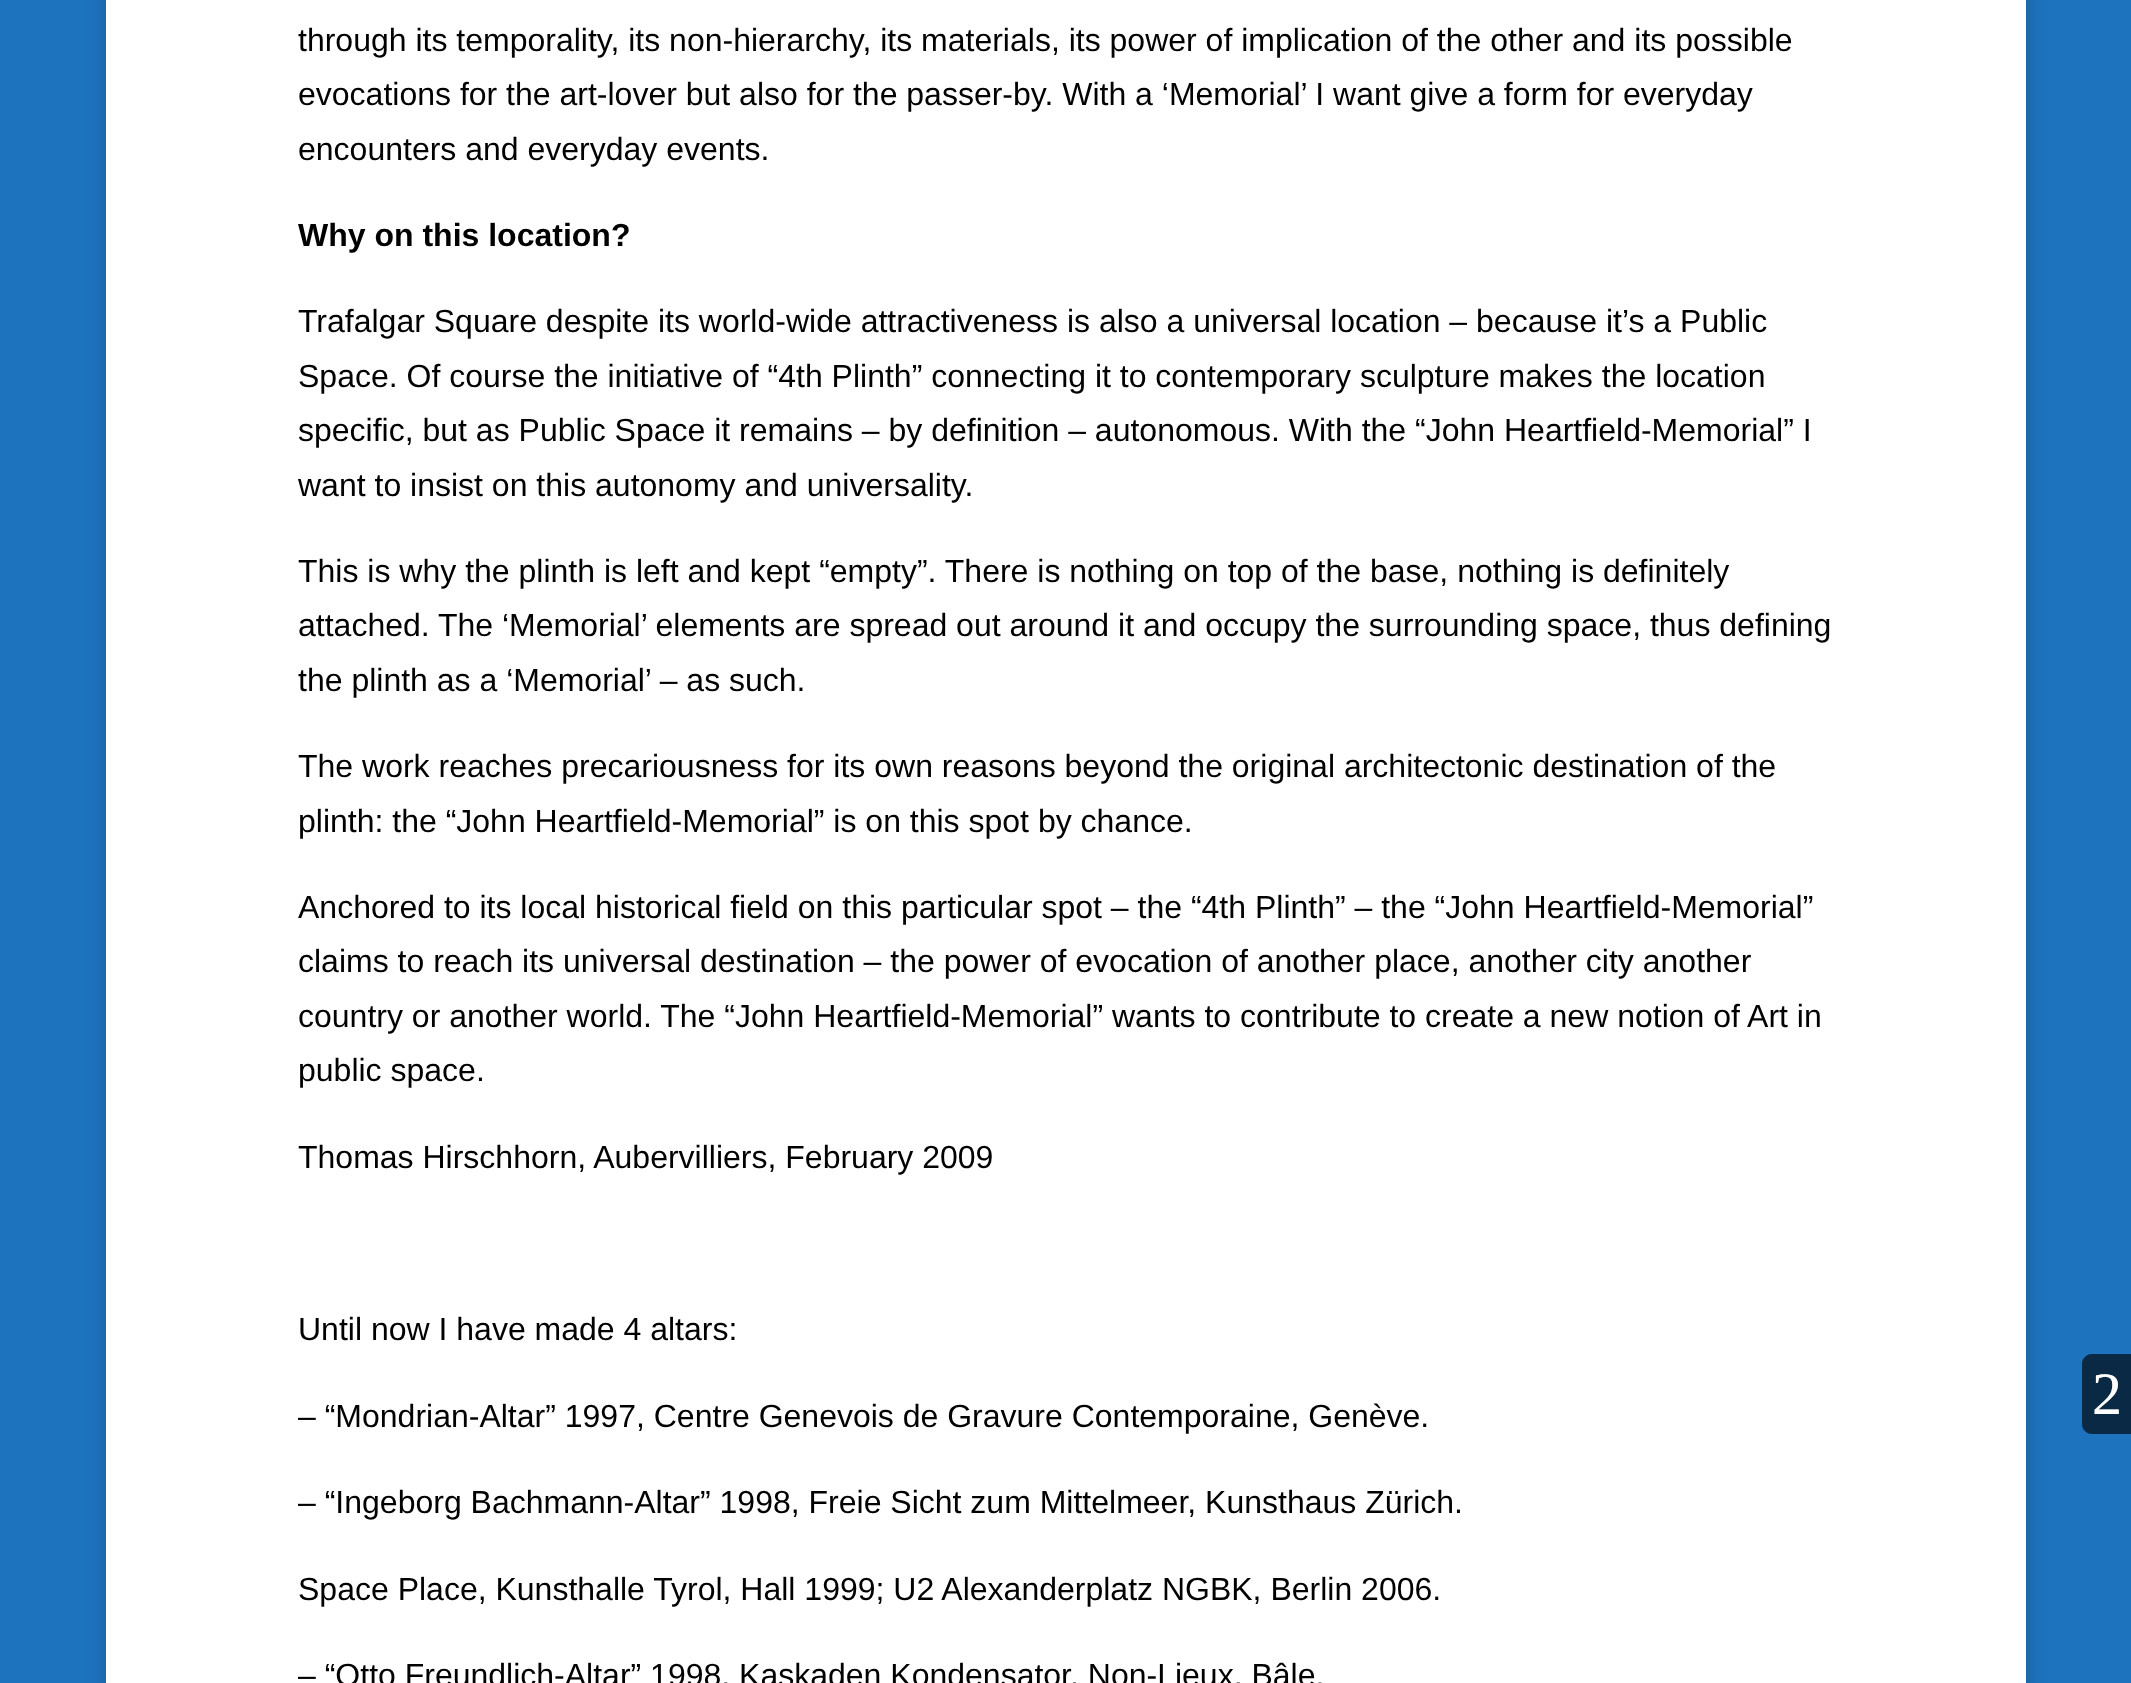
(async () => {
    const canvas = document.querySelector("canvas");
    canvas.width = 2131;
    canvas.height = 1683;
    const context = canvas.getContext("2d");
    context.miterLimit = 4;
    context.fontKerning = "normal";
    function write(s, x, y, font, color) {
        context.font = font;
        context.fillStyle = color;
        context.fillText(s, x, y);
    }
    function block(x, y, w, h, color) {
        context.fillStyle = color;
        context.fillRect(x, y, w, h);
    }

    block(0, 0, 2131, 1683, "rgb(30, 115, 190)");
    context.fillStyle = "rgba(0, 0, 0, 0.2)";
    context.filter = "blur(10px)";
    context.beginPath();
    context.rect(106, -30, 1920, 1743);
    context.fill();
    context.filter = "none";
    block(106, 0, 1920, 1683, "rgb(255, 255, 255)");
    write("through its temporality, its non-hierarchy, its materials, its power of implication of the other and its possible", 298, 51, "32px Liberation Sans", "rgb(0, 0, 0)");
    write("evocations for the art-lover but also for the passer-by. With a ‘Memorial’ I want give a form for everyday", 298, 105, "32px Liberation Sans", "rgb(0, 0, 0)");
    write("encounters and everyday events.", 298, 160, "32px Liberation Sans", "rgb(0, 0, 0)");
    write("Why on this location?", 298, 246, "bold 32px Liberation Sans", "rgb(0, 0, 0)");
    write("Trafalgar Square despite its world-wide attractiveness is also a universal location – because it’s a Public", 298, 332, "32px Liberation Sans", "rgb(0, 0, 0)");
    write("Space. Of course the initiative of “4th Plinth” connecting it to contemporary sculpture makes the location", 298, 387, "32px Liberation Sans", "rgb(0, 0, 0)");
    write("specific, but as Public Space it remains – by definition – autonomous. With the “John Heartfield-Memorial” I", 298, 441, "32px Liberation Sans", "rgb(0, 0, 0)");
    write("want to insist on this autonomy and universality.", 298, 496, "32px Liberation Sans", "rgb(0, 0, 0)");
    write("This is why the plinth is left and kept “empty”. There is nothing on top of the base, nothing is definitely", 298, 582, "32px Liberation Sans", "rgb(0, 0, 0)");
    write("attached. The ‘Memorial’ elements are spread out around it and occupy the surrounding space, thus defining", 298, 636, "32px Liberation Sans", "rgb(0, 0, 0)");
    write("the plinth as a ‘Memorial’ – as such.", 298, 691, "32px Liberation Sans", "rgb(0, 0, 0)");
    write("The work reaches precariousness for its own reasons beyond the original architectonic destination of the", 298, 777, "32px Liberation Sans", "rgb(0, 0, 0)");
    write("plinth: the “John Heartfield-Memorial” is on this spot by chance.", 298, 832, "32px Liberation Sans", "rgb(0, 0, 0)");
    write("Anchored to its local historical field on this particular spot – the “4th Plinth” – the “John Heartfield-Memorial”", 298, 918, "32px Liberation Sans", "rgb(0, 0, 0)");
    write("claims to reach its universal destination – the power of evocation of another place, another city another", 298, 972, "32px Liberation Sans", "rgb(0, 0, 0)");
    write("country or another world. The “John Heartfield-Memorial” wants to contribute to create a new notion of Art in", 298, 1027, "32px Liberation Sans", "rgb(0, 0, 0)");
    write("public space.", 298, 1081, "32px Liberation Sans", "rgb(0, 0, 0)");
    write("Thomas Hirschhorn, Aubervilliers, February 2009", 298, 1168, "32px Liberation Sans", "rgb(0, 0, 0)");
    write("Until now I have made 4 altars:", 298, 1340, "32px Liberation Sans", "rgb(0, 0, 0)");
    write("– “Mondrian-Altar” 1997, Centre Genevois de Gravure Contemporaine, Genève.", 298, 1427, "32px Liberation Sans", "rgb(0, 0, 0)");
    write("– “Ingeborg Bachmann-Altar” 1998, Freie Sicht zum Mittelmeer, Kunsthaus Zürich.", 298, 1513, "32px Liberation Sans", "rgb(0, 0, 0)");
    write("Space Place, Kunsthalle Tyrol, Hall 1999; U2 Alexanderplatz NGBK, Berlin 2006.", 298, 1600, "32px Liberation Sans", "rgb(0, 0, 0)");
    write("– “Otto Freundlich-Altar” 1998, Kaskaden Kondensator, Non-Lieux, Bâle.", 298, 1686, "32px Liberation Sans", "rgb(0, 0, 0)");
    context.fillStyle = "rgb(18, 69, 114)";
    context.beginPath();
    context.moveTo(2092, 1354);
    context.lineTo(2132, 1354);
    context.lineTo(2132, 1434);
    context.lineTo(2092, 1434);
    context.bezierCurveTo(2086.5, 1434, 2082, 1429.5, 2082, 1424);
    context.lineTo(2082, 1364);
    context.bezierCurveTo(2082, 1358.5, 2086.5, 1354, 2092, 1354);
    context.closePath();
    context.fill();
    write("2", 2092, 1414, "60px Liberation Serif", "rgb(255, 255, 255)");
    context.fillStyle = "rgba(0, 0, 0, 0.4)";
    context.beginPath();
    context.moveTo(2092, 1354);
    context.lineTo(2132, 1354);
    context.lineTo(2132, 1434);
    context.lineTo(2092, 1434);
    context.bezierCurveTo(2086.5, 1434, 2082, 1429.5, 2082, 1424);
    context.lineTo(2082, 1364);
    context.bezierCurveTo(2082, 1358.5, 2086.5, 1354, 2092, 1354);
    context.closePath();
    context.fill();
    write("2", 2092, 1414, "60px Liberation Serif", "rgb(255, 255, 255)");
})();
